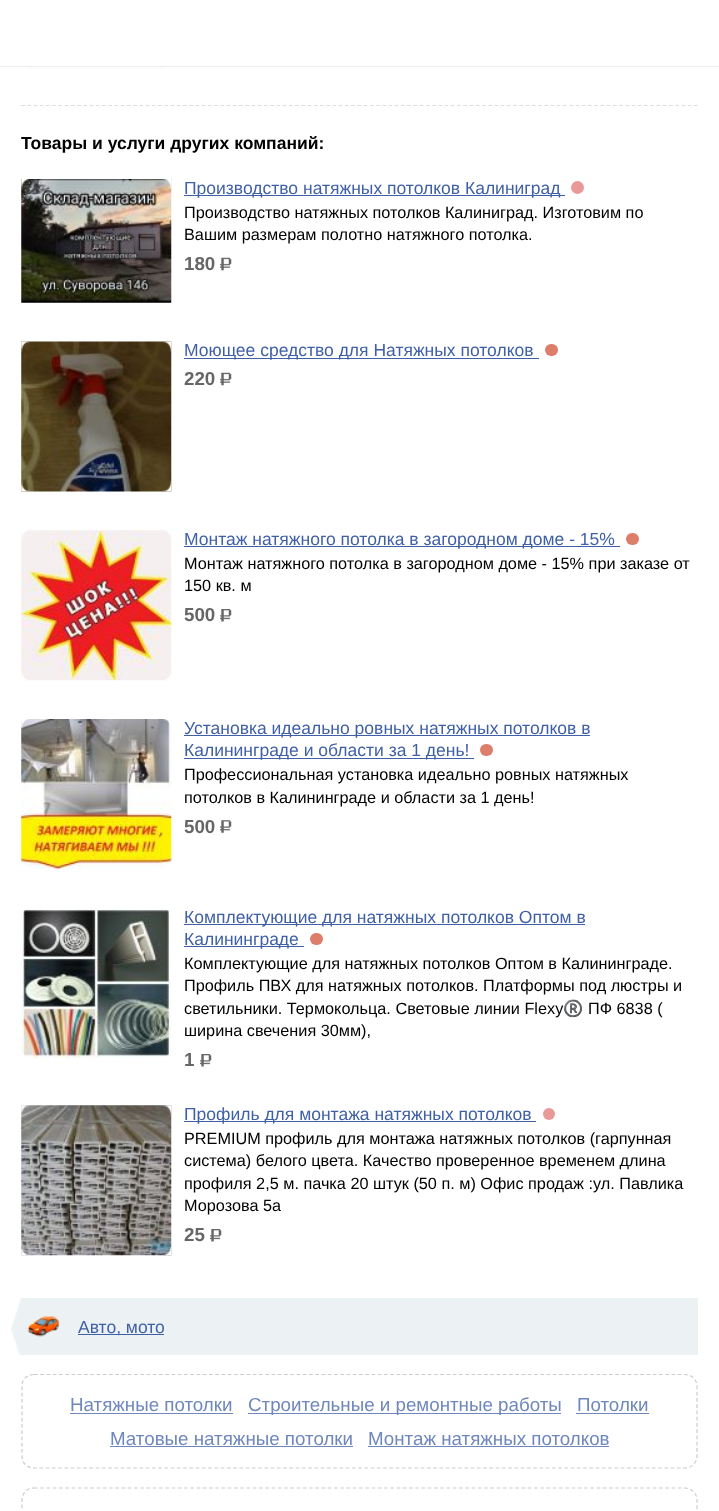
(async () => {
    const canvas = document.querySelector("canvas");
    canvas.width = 719;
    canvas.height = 1511;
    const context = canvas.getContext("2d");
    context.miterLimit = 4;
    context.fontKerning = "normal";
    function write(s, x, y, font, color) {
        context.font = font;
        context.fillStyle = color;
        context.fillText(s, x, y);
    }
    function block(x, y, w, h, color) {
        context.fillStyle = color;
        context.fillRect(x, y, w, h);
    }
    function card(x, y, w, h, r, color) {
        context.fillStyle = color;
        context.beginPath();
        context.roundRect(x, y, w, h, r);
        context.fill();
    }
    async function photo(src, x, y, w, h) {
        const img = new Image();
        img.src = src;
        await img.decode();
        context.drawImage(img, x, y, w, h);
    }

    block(0, 0, 719, 1511, "rgb(255, 255, 255)");
    block(0, 66, 719, 1, "rgb(238, 238, 238)");
    await photo("media/1.png", 21, 68, 150, 1);
    context.beginPath();
    context.moveTo(21, 105.5);
    context.lineTo(697.5, 105.5);
    context.strokeStyle = "rgb(221, 221, 221)";
    context.lineWidth = 1.2;
    context.setLineDash([3.75, 2.48]);
    context.stroke();
    write("Товары и услуги других компаний:", 21, 149, "bold 17.5px Liberation Sans", "rgb(0, 0, 0)");
    await photo("media/2.png", 21, 179, 151, 124);
    await photo("media/3.png", 21, 179, 151, 10);
    block(184, 195, 381, 1, "rgb(63, 95, 166)");
    write("Производство натяжных потолков Калиниград", 184, 194, "17.5px Liberation Sans", "rgb(63, 95, 166)");
    context.fillStyle = "rgb(234, 153, 153)";
    context.beginPath();
    context.arc(577.5, 187.5, 6.5, 0, Math.PI * 2);
    context.fill();
    write("Производство натяжных потолков Калиниград. Изготовим по", 184, 218, "16.25px Liberation Sans", "rgb(0, 0, 0)");
    write("Вашим размерам полотно натяжного потолка.", 184, 240, "16.25px Liberation Sans", "rgb(0, 0, 0)");
    write("180", 184, 270, "bold 18.75px Liberation Sans", "rgb(102, 102, 102)");
    await photo("media/4.png", 220, 257, 12, 14);
    await photo("media/5.png", 21, 341, 151, 151);
    await photo("media/6.png", 21, 341, 151, 151);
    block(184, 358, 355, 1, "rgb(63, 95, 166)");
    write("Моющее средство для Натяжных потолков", 184, 356, "17.5px Liberation Sans", "rgb(63, 95, 166)");
    card(545, 344, 13, 12, 6, "rgb(221, 126, 107)");
    write("220", 184, 385, "bold 18.75px Liberation Sans", "rgb(102, 102, 102)");
    await photo("media/4.png", 220, 372, 12, 14);
    await photo("media/7.png", 21, 530, 151, 151);
    await photo("media/8.png", 21, 530, 150, 150);
    block(184, 546, 436, 1, "rgb(63, 95, 166)");
    write("Монтаж натяжного потолка в загородном доме - 15%", 184, 545, "17.5px Liberation Sans", "rgb(63, 95, 166)");
    card(626, 533, 13, 12, 6, "rgb(221, 126, 107)");
    write("Монтаж натяжного потолка в загородном доме - 15% при заказе от", 184, 569, "16.25px Liberation Sans", "rgb(0, 0, 0)");
    write("150 кв. м", 184, 591, "16.25px Liberation Sans", "rgb(0, 0, 0)");
    write("500", 184, 621, "bold 18.75px Liberation Sans", "rgb(102, 102, 102)");
    await photo("media/9.png", 220, 609, 12, 13);
    await photo("media/10.png", 21, 719, 151, 150);
    await photo("media/11.png", 21, 719, 150, 150);
    block(184, 735, 406, 1, "rgb(63, 95, 166)");
    write("Установка идеально ровных натяжных потолков в", 184, 734, "17.5px Liberation Sans", "rgb(63, 95, 166)");
    block(184, 758, 290, 1, "rgb(63, 95, 166)");
    write("Калининграде и области за 1 день!", 184, 756, "17.5px Liberation Sans", "rgb(63, 95, 166)");
    card(480, 744, 13, 12, 6, "rgb(221, 126, 107)");
    write("Профессиональная установка идеально ровных натяжных", 184, 780, "16.25px Liberation Sans", "rgb(0, 0, 0)");
    write("потолков в Калининграде и области за 1 день!", 184, 803, "16.25px Liberation Sans", "rgb(0, 0, 0)");
    write("500", 184, 833, "bold 18.75px Liberation Sans", "rgb(102, 102, 102)");
    await photo("media/12.png", 220, 820, 12, 13);
    await photo("media/13.png", 21, 908, 151, 150);
    await photo("media/14.png", 21, 908, 150, 150);
    block(184, 924, 401, 1, "rgb(63, 95, 166)");
    write("Комплектующие для натяжных потолков Оптом в", 184, 923, "17.5px Liberation Sans", "rgb(63, 95, 166)");
    block(184, 946, 120, 1, "rgb(63, 95, 166)");
    write("Калининграде", 184, 945, "17.5px Liberation Sans", "rgb(63, 95, 166)");
    card(310, 933, 13, 12, 6, "rgb(221, 126, 107)");
    write("Комплектующие для натяжных потолков Оптом в Калининграде.", 184, 969, "16.25px Liberation Sans", "rgb(0, 0, 0)");
    write("Профиль ПВХ для натяжных потолков. Платформы под люстры и", 184, 991, "16.25px Liberation Sans", "rgb(0, 0, 0)");
    write("светильники. Термокольца. Световые линии Flexy", 184, 1014, "16.25px Liberation Sans", "rgb(0, 0, 0)");
    write("®️", 563, 1014, "16.25px Noto Color Emoji", "rgb(0, 0, 0)");
    write("ПФ 6838 (", 588, 1014, "16.25px Liberation Sans", "rgb(0, 0, 0)");
    write("ширина свечения 30мм),", 184, 1036, "16.25px Liberation Sans", "rgb(0, 0, 0)");
    write("1", 184, 1066, "bold 18.75px Liberation Sans", "rgb(102, 102, 102)");
    await photo("media/9.png", 200, 1054, 12, 13);
    await photo("media/15.png", 21, 1105, 151, 151);
    await photo("media/16.png", 21, 1105, 151, 151);
    block(184, 1121, 352, 1, "rgb(63, 95, 166)");
    write("Профиль для монтажа натяжных потолков", 184, 1120, "17.5px Liberation Sans", "rgb(63, 95, 166)");
    context.fillStyle = "rgb(234, 153, 153)";
    context.beginPath();
    context.arc(549, 1114, 6, 0, Math.PI * 2);
    context.fill();
    write("PREMIUM профиль для монтажа натяжных потолков (гарпунная", 184, 1144, "16.25px Liberation Sans", "rgb(0, 0, 0)");
    write("система) белого цвета. Качество проверенное временем длина", 184, 1166, "16.25px Liberation Sans", "rgb(0, 0, 0)");
    write("профиля 2,5 м. пачка 20 штук (50 п. м) Офис продаж :ул. Павлика", 184, 1189, "16.25px Liberation Sans", "rgb(0, 0, 0)");
    write("Морозова 5а", 184, 1211, "16.25px Liberation Sans", "rgb(0, 0, 0)");
    write("25", 184, 1241, "bold 18.75px Liberation Sans", "rgb(102, 102, 102)");
    await photo("media/9.png", 210, 1229, 12, 13);
    block(21, 1298, 677, 57, "rgb(236, 242, 244)");
    await photo("media/17.png", 11, 1298, 10, 57);
    await photo("media/18.png", 27, 1316, 32, 21);
    block(78, 1334, 86, 1, "rgb(63, 95, 166)");
    write("Авто, мото", 78, 1333, "17.5px Liberation Sans", "rgb(63, 95, 166)");
    context.beginPath();
    context.moveTo(34, 1374.5);
    context.lineTo(685, 1374.5);
    context.bezierCurveTo(691.5, 1374.5, 697, 1379.5, 697, 1386);
    context.lineTo(697, 1456);
    context.bezierCurveTo(697, 1463, 691.5, 1468, 685, 1468);
    context.lineTo(34, 1468);
    context.bezierCurveTo(27, 1468, 22, 1463, 22, 1456);
    context.lineTo(22, 1386);
    context.bezierCurveTo(22, 1379.5, 27, 1374.5, 34, 1374.5);
    context.closePath();
    context.strokeStyle = "rgb(204, 204, 204)";
    context.setLineDash([3.75, 2.5]);
    context.stroke();
    write("Натяжные потолки", 70, 1411, "18.75px Liberation Sans", "rgb(111, 135, 188)");
    block(70, 1413, 163, 1, "rgb(111, 135, 188)");
    block(248, 1413, 313, 1, "rgb(111, 135, 188)");
    write("Строительные и ремонтные работы", 248, 1411, "18.75px Liberation Sans", "rgb(111, 135, 188)");
    write("Потолки", 577, 1411, "18.75px Liberation Sans", "rgb(111, 135, 188)");
    block(576, 1413, 73, 1, "rgb(111, 135, 188)");
    write("Матовые натяжные потолки", 110, 1445, "18.75px Liberation Sans", "rgb(111, 135, 188)");
    block(110, 1446, 243, 1, "rgb(111, 135, 188)");
    write("Монтаж натяжных потолков", 368, 1445, "18.75px Liberation Sans", "rgb(111, 135, 188)");
    block(368, 1446, 241, 1, "rgb(111, 135, 188)");
    context.beginPath();
    context.moveTo(34, 1488);
    context.lineTo(685, 1488);
    context.bezierCurveTo(691.5, 1488, 697, 1493.5, 697, 1500);
    context.lineTo(697, 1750);
    context.bezierCurveTo(697, 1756.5, 691.5, 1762, 685, 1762);
    context.lineTo(34, 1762);
    context.bezierCurveTo(27, 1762, 22, 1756.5, 22, 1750);
    context.lineTo(22, 1500);
    context.bezierCurveTo(22, 1493.5, 27, 1488, 34, 1488);
    context.closePath();
    context.stroke();
})();
